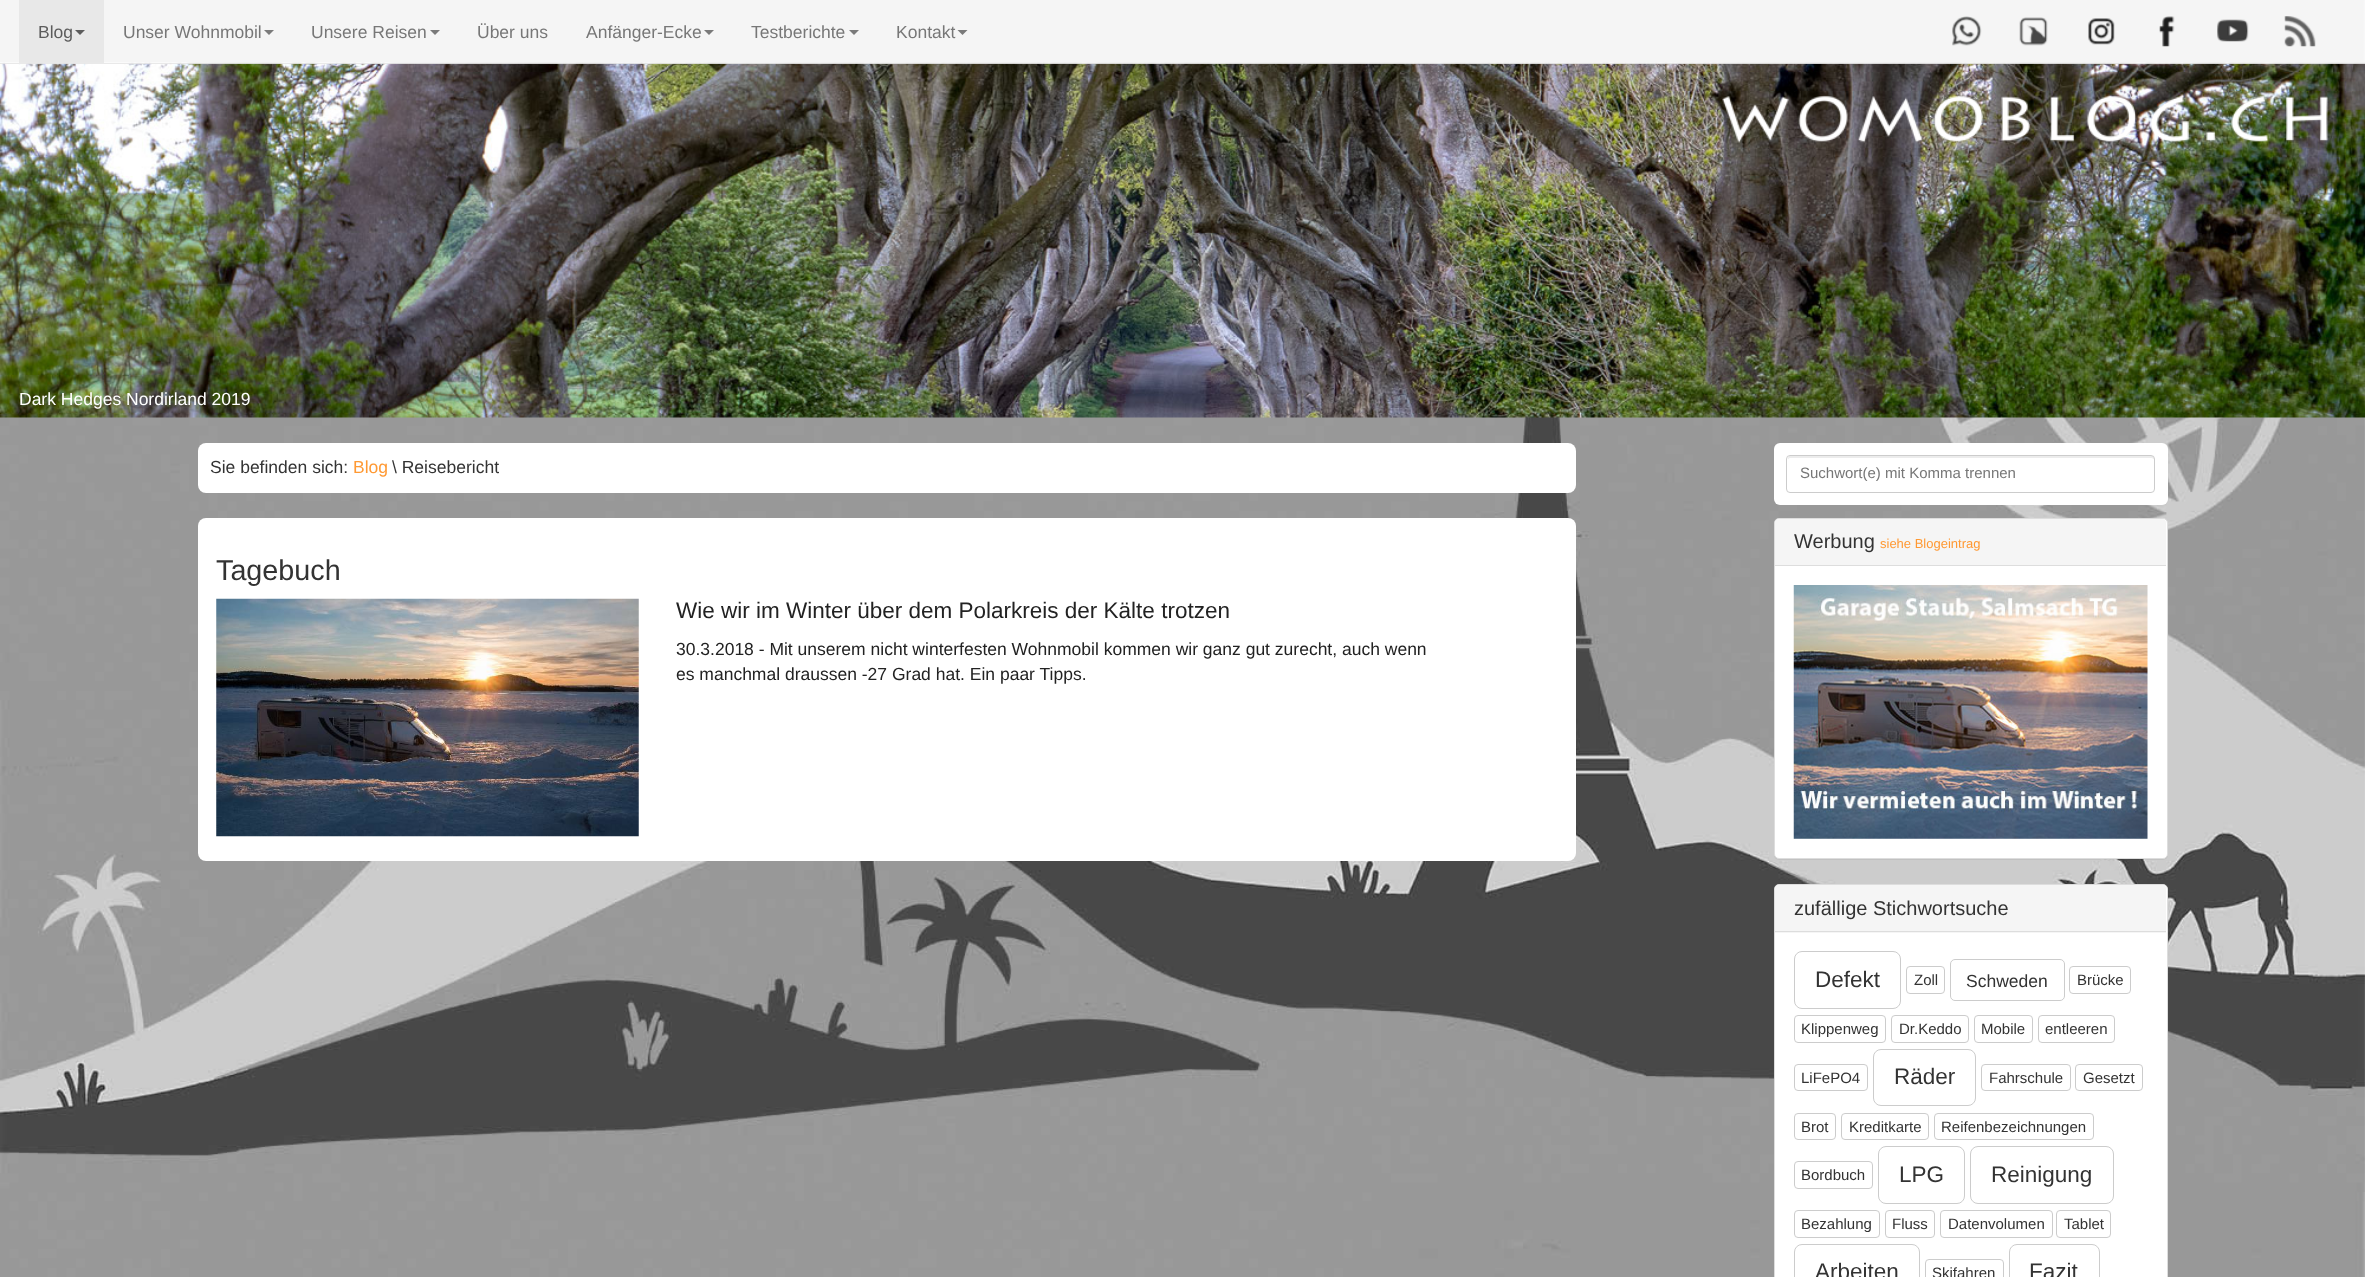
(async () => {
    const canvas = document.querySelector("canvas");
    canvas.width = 2365;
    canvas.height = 1277;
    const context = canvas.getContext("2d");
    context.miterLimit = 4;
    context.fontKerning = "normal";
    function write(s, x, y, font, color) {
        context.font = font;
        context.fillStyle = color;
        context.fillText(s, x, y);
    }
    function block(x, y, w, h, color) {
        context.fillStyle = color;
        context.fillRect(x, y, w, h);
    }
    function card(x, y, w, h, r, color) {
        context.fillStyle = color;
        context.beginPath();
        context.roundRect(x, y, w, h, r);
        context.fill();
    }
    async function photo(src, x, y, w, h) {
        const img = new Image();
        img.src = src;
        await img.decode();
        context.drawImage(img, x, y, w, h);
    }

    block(0, 0, 2365, 1277, "rgb(255, 255, 255)");
    await photo("media/1.png", 0, 0, 2365, 1277);
    await photo("media/9.png", 0, 62, 2365, 356);
    block(0, 0, 2365, 63, "rgba(255, 255, 255, 0.9)");
    block(0, 63, 2365, 1, "rgba(231, 231, 231, 0.9)");
    block(19, 0, 85, 63, "rgba(231, 231, 231, 0.9)");
    write("Blog", 38, 38, "17.5px Liberation Sans", "rgb(92, 92, 92)");
    context.beginPath();
    context.moveTo(75, 30);
    context.lineTo(85, 30);
    context.lineTo(80, 35);
    context.closePath();
    context.fill();
    write("Unser Wohnmobil", 123, 38, "17.5px Liberation Sans", "rgb(119, 119, 119)");
    context.fillStyle = "rgb(123, 123, 123)";
    context.beginPath();
    context.moveTo(264, 30);
    context.lineTo(274, 30);
    context.lineTo(269, 35);
    context.closePath();
    context.fill();
    write("Unsere Reisen", 311, 38, "17.5px Liberation Sans", "rgb(119, 119, 119)");
    context.fillStyle = "rgb(122, 122, 122)";
    context.beginPath();
    context.moveTo(430, 30);
    context.lineTo(440, 30);
    context.lineTo(435, 35);
    context.closePath();
    context.fill();
    write("Über uns", 477, 38, "17.5px Liberation Sans", "rgb(119, 119, 119)");
    write("Anfänger-Ecke", 586, 38, "17.5px Liberation Sans", "rgb(119, 119, 119)");
    context.fillStyle = "rgb(122, 122, 122)";
    context.beginPath();
    context.moveTo(704, 30);
    context.lineTo(714, 30);
    context.lineTo(709, 35);
    context.closePath();
    context.fill();
    write("Testberichte", 751, 38, "17.5px Liberation Sans", "rgb(119, 119, 119)");
    context.fillStyle = "rgb(122, 122, 122)";
    context.beginPath();
    context.moveTo(849, 30);
    context.lineTo(859, 30);
    context.lineTo(854, 35);
    context.closePath();
    context.fill();
    write("Kontakt", 896, 38, "17.5px Liberation Sans", "rgb(119, 119, 119)");
    context.fillStyle = "rgb(122, 122, 122)";
    context.beginPath();
    context.moveTo(957.5, 30);
    context.lineTo(967.5, 30);
    context.lineTo(962.5, 35);
    context.closePath();
    context.fill();
    await photo("media/2.png", 1952, 16, 30, 30);
    await photo("media/3.png", 2019, 17, 29, 29);
    await photo("media/4.png", 2088, 18, 27, 27);
    await photo("media/5.png", 2159, 16, 16, 31);
    await photo("media/6.png", 2217, 19, 32, 23);
    await photo("media/7.png", 2284, 16, 32, 31);
    await photo("media/8.png", 1722, 95, 606, 48);
    write("Dark Hedges Nordirland 2019", 19, 405, "17.5px Liberation Sans", "rgb(255, 255, 255)");
    card(198, 443, 1378, 50, 8, "rgb(255, 255, 255)");
    write("Sie befinden sich:", 210, 473, "17.5px Liberation Sans", "rgb(51, 51, 51)");
    write("Blog", 353, 473, "17.5px Liberation Sans", "rgb(255, 153, 51)");
    write("\\ Reisebericht", 392, 473, "17.5px Liberation Sans", "rgb(51, 51, 51)");
    card(1774, 443, 394, 62, 6, "rgb(255, 255, 255)");
    context.fillStyle = "rgb(236, 236, 236)";
    context.beginPath();
    context.moveTo(1790, 458);
    context.lineTo(2151, 458);
    context.bezierCurveTo(2153, 458, 2154, 459, 2154, 460);
    context.bezierCurveTo(2154, 458, 2154, 456, 2152, 456);
    context.lineTo(1790, 456);
    context.bezierCurveTo(1788, 456, 1788, 458, 1788, 460);
    context.bezierCurveTo(1788, 459, 1789, 458, 1790, 458);
    context.closePath();
    context.fill();
    context.beginPath();
    context.roundRect(1786.5, 455.5, 368, 37, 3.5);
    context.strokeStyle = "rgb(204, 204, 204)";
    context.stroke();
    write("Suchwort(e) mit Komma trennen", 1800, 478, "15px Liberation Sans", "rgb(119, 119, 119)");
    card(198, 518, 1378, 343, 8, "rgb(255, 255, 255)");
    write("Tagebuch", 216, 580, "28.75px Liberation Sans", "rgb(51, 51, 51)");
    await photo("media/10.png", 216, 598, 423, 239);
    write("Wie wir im Winter über dem Polarkreis der Kälte trotzen", 676, 618, "22.5px Liberation Sans", "rgb(34, 34, 34)");
    write("30.3.2018 - Mit unserem nicht winterfesten Wohnmobil kommen wir ganz gut zurecht, auch wenn", 676, 655, "17.5px Liberation Sans", "rgb(34, 34, 34)");
    write("es manchmal draussen -27 Grad hat. Ein paar Tipps.", 676, 680, "17.5px Liberation Sans", "rgb(34, 34, 34)");
    context.fillStyle = "rgba(0, 0, 0, 0.05)";
    context.filter = "blur(0.5px)";
    context.beginPath();
    context.roundRect(1774, 519, 394, 341, 5);
    context.fill();
    context.filter = "none";
    context.fillStyle = "rgb(255, 255, 255)";
    context.beginPath();
    context.roundRect(1774.5, 518.5, 393, 340, 4.5);
    context.fill();
    context.strokeStyle = "rgb(221, 221, 221)";
    context.stroke();
    context.fillStyle = "rgb(245, 245, 245)";
    context.beginPath();
    context.roundRect(1775, 519, 391, 47, [4, 4, 0, 0]);
    context.fill();
    block(1775, 565, 391, 1, "rgb(221, 221, 221)");
    write("Werbung", 1794, 548, "20px Liberation Sans", "rgb(51, 51, 51)");
    write("siehe Blogeintrag", 1880, 548, "13px Liberation Sans", "rgb(255, 153, 51)");
    await photo("media/11.png", 1793, 585, 355, 254);
    context.fillStyle = "rgb(255, 255, 255)";
    context.beginPath();
    context.roundRect(1774.5, 884.5, 393, 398, 4.5);
    context.fill();
    context.stroke();
    context.fillStyle = "rgb(245, 245, 245)";
    context.beginPath();
    context.roundRect(1775, 885, 391, 48, [4, 4, 0, 0]);
    context.fill();
    block(1775, 931, 391, 1, "rgb(221, 221, 221)");
    write("zufällige Stichwortsuche", 1794, 915, "20px Liberation Sans", "rgb(51, 51, 51)");
    context.beginPath();
    context.roundRect(1794.5, 951.5, 106, 57, 7.5);
    context.strokeStyle = "rgb(204, 204, 204)";
    context.stroke();
    write("Defekt", 1815, 987, "22.5px Liberation Sans", "rgb(51, 51, 51)");
    context.beginPath();
    context.roundRect(1906.5, 966.5, 38, 27, 3.5);
    context.stroke();
    write("Zoll", 1914, 985, "15px Liberation Sans", "rgb(51, 51, 51)");
    context.beginPath();
    context.roundRect(1950.5, 959.5, 114, 41, 4.5);
    context.stroke();
    write("Schweden", 1966, 987, "17.5px Liberation Sans", "rgb(51, 51, 51)");
    context.beginPath();
    context.roundRect(2069.5, 966.5, 61, 27, 3.5);
    context.stroke();
    write("Brücke", 2077, 985, "15px Liberation Sans", "rgb(51, 51, 51)");
    context.beginPath();
    context.roundRect(1794.5, 1015.5, 91, 27, 3.5);
    context.stroke();
    write("Klippenweg", 1801, 1034, "15px Liberation Sans", "rgb(51, 51, 51)");
    context.beginPath();
    context.roundRect(1891.5, 1015.5, 77, 27, 3.5);
    context.stroke();
    write("Dr.Keddo", 1899, 1034, "15px Liberation Sans", "rgb(51, 51, 51)");
    context.beginPath();
    context.roundRect(1974.5, 1015.5, 58, 27, 3.5);
    context.stroke();
    write("Mobile", 1981, 1034, "15px Liberation Sans", "rgb(51, 51, 51)");
    context.beginPath();
    context.roundRect(2038.5, 1015.5, 76, 27, 3.5);
    context.stroke();
    write("entleeren", 2045, 1034, "15px Liberation Sans", "rgb(51, 51, 51)");
    context.beginPath();
    context.roundRect(1794.5, 1064.5, 73, 26, 3.5);
    context.stroke();
    write("LiFePO4", 1801, 1083, "15px Liberation Sans", "rgb(51, 51, 51)");
    context.beginPath();
    context.roundRect(1873.5, 1049.5, 102, 56, 7.5);
    context.stroke();
    write("Räder", 1894, 1084, "22.5px Liberation Sans", "rgb(51, 51, 51)");
    context.beginPath();
    context.roundRect(1981.5, 1064.5, 89, 26, 3.5);
    context.stroke();
    write("Fahrschule", 1989, 1083, "15px Liberation Sans", "rgb(51, 51, 51)");
    context.beginPath();
    context.roundRect(2075.5, 1064.5, 67, 26, 3.5);
    context.stroke();
    write("Gesetzt", 2083, 1083, "15px Liberation Sans", "rgb(51, 51, 51)");
    context.beginPath();
    context.roundRect(1794.5, 1113.5, 41, 26, 3.5);
    context.stroke();
    write("Brot", 1801, 1132, "15px Liberation Sans", "rgb(51, 51, 51)");
    context.beginPath();
    context.roundRect(1841.5, 1113.5, 87, 26, 3.5);
    context.stroke();
    write("Kreditkarte", 1849, 1132, "15px Liberation Sans", "rgb(51, 51, 51)");
    context.beginPath();
    context.roundRect(1934.5, 1113.5, 159, 26, 3.5);
    context.stroke();
    write("Reifenbezeichnungen", 1941, 1132, "15px Liberation Sans", "rgb(51, 51, 51)");
    context.beginPath();
    context.roundRect(1794.5, 1161.5, 78, 27, 3.5);
    context.stroke();
    write("Bordbuch", 1801, 1180, "15px Liberation Sans", "rgb(51, 51, 51)");
    context.beginPath();
    context.roundRect(1878.5, 1146.5, 86, 57, 7.5);
    context.stroke();
    write("LPG", 1899, 1182, "22.5px Liberation Sans", "rgb(51, 51, 51)");
    context.beginPath();
    context.roundRect(1970.5, 1146.5, 143, 57, 7.5);
    context.stroke();
    write("Reinigung", 1991, 1182, "22.5px Liberation Sans", "rgb(51, 51, 51)");
    context.beginPath();
    context.roundRect(1794.5, 1210.5, 85, 27, 3.5);
    context.stroke();
    write("Bezahlung", 1801, 1229, "15px Liberation Sans", "rgb(51, 51, 51)");
    context.beginPath();
    context.roundRect(1885.5, 1210.5, 49, 27, 3.5);
    context.stroke();
    write("Fluss", 1892, 1229, "15px Liberation Sans", "rgb(51, 51, 51)");
    context.beginPath();
    context.roundRect(1940.5, 1210.5, 112, 27, 3.5);
    context.stroke();
    write("Datenvolumen", 1948, 1229, "15px Liberation Sans", "rgb(51, 51, 51)");
    context.beginPath();
    context.roundRect(2056.5, 1210.5, 54, 27, 3.5);
    context.stroke();
    write("Tablet", 2064, 1229, "15px Liberation Sans", "rgb(51, 51, 51)");
    context.beginPath();
    context.roundRect(1794.5, 1244.5, 125, 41, 7.5);
    context.stroke();
    write("Arbeiten", 1815, 1279, "22.5px Liberation Sans", "rgb(51, 51, 51)");
    context.beginPath();
    context.roundRect(1925.5, 1259.5, 78, 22, 3.5);
    context.stroke();
    write("Skifahren", 1932, 1278, "15px Liberation Sans", "rgb(51, 51, 51)");
    context.beginPath();
    context.roundRect(2009.5, 1244.5, 90, 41, 7.5);
    context.stroke();
    write("Fazit", 2029, 1279, "22.5px Liberation Sans", "rgb(51, 51, 51)");
})();
